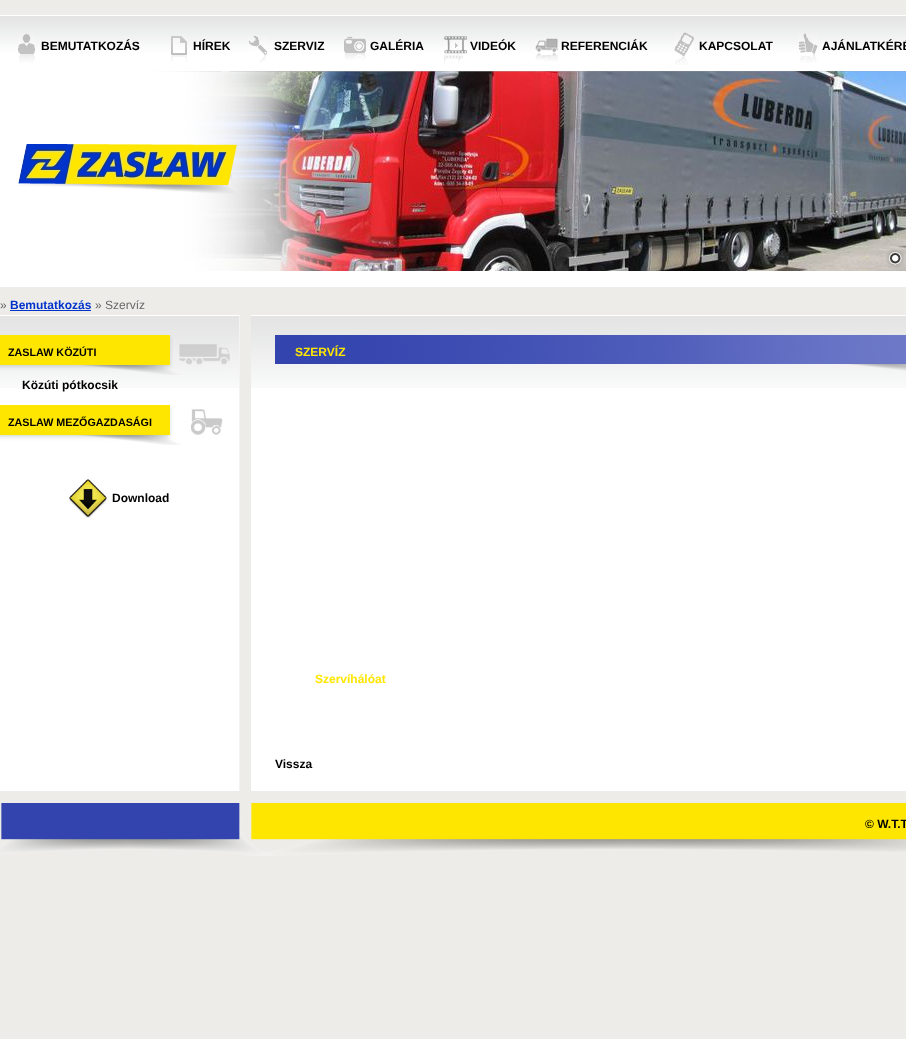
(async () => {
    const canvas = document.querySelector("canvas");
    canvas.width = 906;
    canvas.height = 1039;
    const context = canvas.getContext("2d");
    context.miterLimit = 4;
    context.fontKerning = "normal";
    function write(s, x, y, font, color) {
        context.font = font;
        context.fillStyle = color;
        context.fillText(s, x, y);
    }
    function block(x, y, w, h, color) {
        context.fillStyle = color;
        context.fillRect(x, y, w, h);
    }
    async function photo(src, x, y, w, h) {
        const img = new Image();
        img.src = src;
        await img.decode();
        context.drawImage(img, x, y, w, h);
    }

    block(0, 0, 906, 1039, "rgb(237, 236, 232)");
    await photo("media/1.png", 0, 15, 906, 56);
    await photo("media/2.png", 18, 33, 17, 30);
    write("BEMUTATKOZÁS", 41, 50, "bold 12px Liberation Sans", "rgb(0, 0, 0)");
    await photo("media/3.png", 171, 36, 16, 26);
    write("HÍREK", 193, 50, "bold 12px Liberation Sans", "rgb(0, 0, 0)");
    await photo("media/4.png", 248, 35, 20, 28);
    write("SZERVIZ", 274, 50, "bold 12px Liberation Sans", "rgb(0, 0, 0)");
    await photo("media/5.png", 344, 36, 22, 24);
    write("GALÉRIA", 370, 50, "bold 12px Liberation Sans", "rgb(0, 0, 0)");
    await photo("media/6.png", 444, 36, 23, 28);
    write("VIDEÓK", 470, 50, "bold 12px Liberation Sans", "rgb(0, 0, 0)");
    await photo("media/7.png", 535, 38, 23, 24);
    write("REFERENCIÁK", 561, 50, "bold 12px Liberation Sans", "rgb(0, 0, 0)");
    await photo("media/8.png", 674, 32, 20, 33);
    write("KAPCSOLAT", 699, 50, "bold 12px Liberation Sans", "rgb(0, 0, 0)");
    await photo("media/9.png", 798, 33, 20, 30);
    write("AJÁNLATKÉRÉ", 822, 50, "bold 12px Liberation Sans", "rgb(0, 0, 0)");
    block(0, 71, 906, 216, "rgb(255, 255, 255)");
    await photo("media/11.png", 144, 71, 762, 200);
    await photo("media/10.png", 16, 71, 274, 200);
    await photo("media/12.png", 886, 249, 18, 18);
    await photo("media/13.png", 18, 144, 219, 50);
    write("»", 0, 309, "12px Liberation Sans", "rgb(102, 102, 102)");
    write("Bemutatkozás", 10, 309, "bold 12px Liberation Sans", "rgb(0, 51, 204)");
    block(10, 310, 81, 1, "rgb(0, 51, 204)");
    write("» Szervíz", 95, 309, "12px Liberation Sans", "rgb(102, 102, 102)");
    await photo("media/14.png", 0, 315, 906, 476);
    await photo("media/15.png", 0, 316, 239, 72);
    await photo("media/16.png", 0, 335, 230, 40);
    write("ZASLAW KÖZÚTI", 8, 356, "bold 10.75px Liberation Sans", "rgb(0, 0, 0)");
    write("Közúti pótkocsik", 22, 389, "bold 12px Liberation Sans", "rgb(0, 0, 0)");
    await photo("media/17.png", 0, 405, 223, 40);
    write("ZASLAW MEZŐGAZDASÁGI", 8, 426, "bold 10.75px Liberation Sans", "rgb(0, 0, 0)");
    await photo("media/18.png", 69, 479, 38, 39);
    write("Download", 112, 502, "bold 12px Liberation Sans", "rgb(0, 0, 0)");
    await photo("media/19.png", 251, 316, 655, 72);
    await photo("media/20.png", 275, 335, 631, 36);
    write("SZERVÍZ", 295, 356, "bold 12px Liberation Sans", "rgb(254, 230, 0)");
    write("Szervíhálóat", 315, 683, "bold 12px Liberation Sans", "rgb(254, 230, 0)");
    write("Vissza", 275, 768, "bold 12px Liberation Sans", "rgb(0, 0, 0)");
    await photo("media/21.png", 1, 803, 905, 53);
    write("© W.T.T", 865, 828, "bold 12px Liberation Sans", "rgb(0, 0, 0)");
})();
